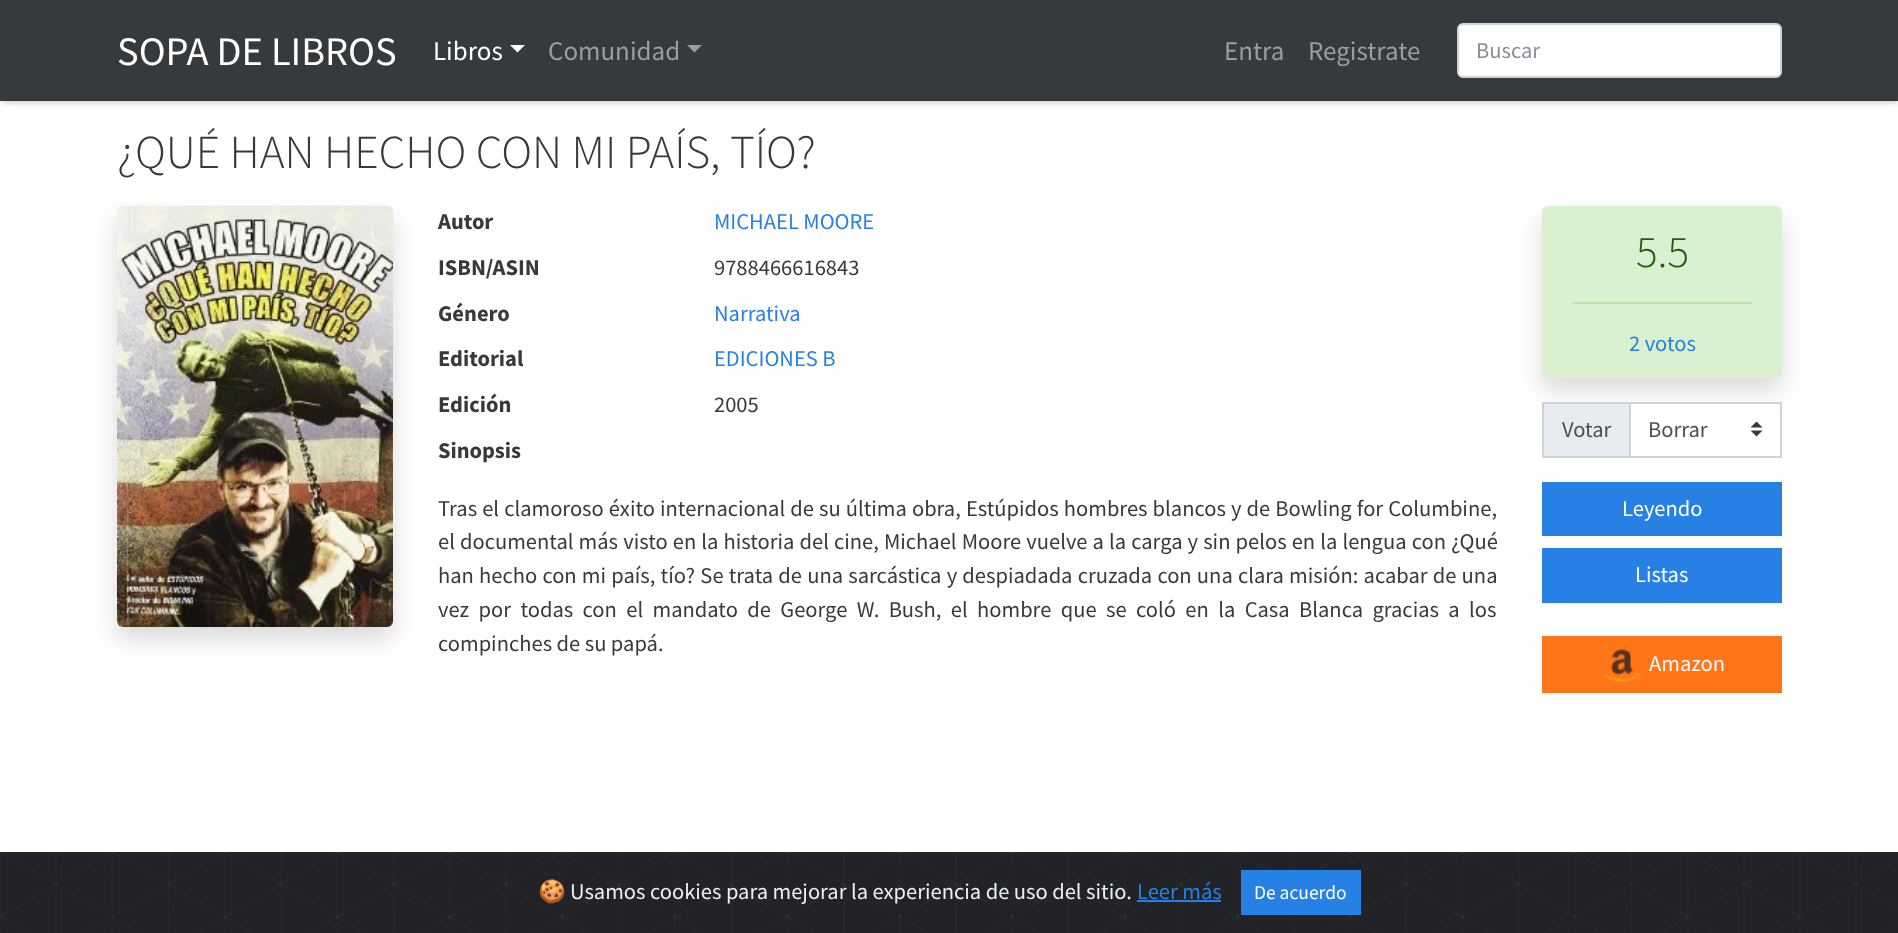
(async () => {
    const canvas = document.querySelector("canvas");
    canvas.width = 1898;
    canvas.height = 933;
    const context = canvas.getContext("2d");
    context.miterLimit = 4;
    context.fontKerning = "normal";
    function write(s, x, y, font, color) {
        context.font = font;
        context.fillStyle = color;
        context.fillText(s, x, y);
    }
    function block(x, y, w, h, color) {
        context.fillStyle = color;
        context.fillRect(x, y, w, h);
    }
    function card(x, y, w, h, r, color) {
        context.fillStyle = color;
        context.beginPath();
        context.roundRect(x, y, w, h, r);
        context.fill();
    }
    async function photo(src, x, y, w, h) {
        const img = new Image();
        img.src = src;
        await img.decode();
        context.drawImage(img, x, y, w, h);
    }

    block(0, 0, 1898, 933, "rgb(255, 255, 255)");
    context.fillStyle = "rgba(0, 0, 0, 0.25)";
    context.filter = "blur(3px)";
    context.beginPath();
    context.rect(2, 5, 1896, 97);
    context.fill();
    context.filter = "none";
    block(0, 0, 1898, 101, "rgb(55, 58, 60)");
    write("SOPA DE LIBROS", 117, 65, "40.5px Source Sans Pro", "rgb(255, 255, 255)");
    write("Libros", 433, 60, "27px Source Sans Pro", "rgb(255, 255, 255)");
    context.beginPath();
    context.moveTo(510, 45);
    context.lineTo(525, 45);
    context.lineTo(517.5, 52.5);
    context.closePath();
    context.fill();
    write("Comunidad", 548, 60, "27px Source Sans Pro", "rgb(155, 157, 158)");
    context.beginPath();
    context.moveTo(687, 45);
    context.lineTo(702, 45);
    context.lineTo(694.5, 52.5);
    context.closePath();
    context.fill();
    write("Entra", 1224, 60, "27px Source Sans Pro", "rgb(155, 157, 158)");
    write("Registrate", 1308, 60, "27px Source Sans Pro", "rgb(155, 157, 158)");
    context.fillStyle = "rgb(255, 255, 255)";
    context.beginPath();
    context.roundRect(1458, 24, 323, 53, 5);
    context.fill();
    context.strokeStyle = "rgb(206, 212, 218)";
    context.lineWidth = 2;
    context.stroke();
    write("Buscar", 1476, 58, "22.5px Source Sans Pro", "rgb(134, 142, 150)");
    write("¿QUÉ HAN HECHO CON MI PAÍS, TÍO?", 117, 168, "300 47.25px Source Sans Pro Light", "rgb(55, 58, 60)");
    context.fillStyle = "rgba(0, 0, 0, 0.15)";
    context.filter = "blur(12px)";
    context.beginPath();
    context.roundRect(117, 218, 276, 421, 6);
    context.fill();
    context.filter = "none";
    await photo("media/1.png", 117, 205, 276, 422);
    write("Autor", 438, 229, "bold 22.5px Source Sans Pro", "rgb(55, 58, 60)");
    write("MICHAEL MOORE", 714, 229, "22.5px Source Sans Pro", "rgb(39, 128, 227)");
    write("ISBN/ASIN", 438, 275, "bold 22.5px Source Sans Pro", "rgb(55, 58, 60)");
    write("9788466616843", 714, 275, "22.5px Source Sans Pro", "rgb(55, 58, 60)");
    write("Género", 438, 321, "bold 22.5px Source Sans Pro", "rgb(55, 58, 60)");
    write("Narrativa", 714, 321, "22.5px Source Sans Pro", "rgb(39, 128, 227)");
    write("Editorial", 438, 366, "bold 22.5px Source Sans Pro", "rgb(55, 58, 60)");
    write("EDICIONES B", 714, 366, "22.5px Source Sans Pro", "rgb(39, 128, 227)");
    write("Edición", 438, 412, "bold 22.5px Source Sans Pro", "rgb(55, 58, 60)");
    write("2005", 714, 412, "22.5px Source Sans Pro", "rgb(55, 58, 60)");
    write("Sinopsis", 438, 458, "bold 22.5px Source Sans Pro", "rgb(55, 58, 60)");
    context.wordSpacing = "0.6px";
    write("Tras el clamoroso éxito internacional de su última obra, Estúpidos hombres blancos y de Bowling for Columbine,", 438, 516, "22.5px Source Sans Pro", "rgb(55, 58, 60)");
    write("el documental más visto en la historia del cine, Michael Moore vuelve a la carga y sin pelos en la lengua con ¿Qué", 438, 549, "22.5px Source Sans Pro", "rgb(55, 58, 60)");
    context.wordSpacing = "0.7px";
    write("han hecho con mi país, tío? Se trata de una sarcástica y despiadada cruzada con una clara misión: acabar de una", 438, 583, "22.5px Source Sans Pro", "rgb(55, 58, 60)");
    context.wordSpacing = "4.9px";
    write("vez por todas con el mandato de George W. Bush, el hombre que se coló en la Casa Blanca gracias a los", 438, 617, "22.5px Source Sans Pro", "rgb(55, 58, 60)");
    context.wordSpacing = "0px";
    write("compinches de su papá.", 438, 651, "22.5px Source Sans Pro", "rgb(55, 58, 60)");
    context.fillStyle = "rgba(0, 0, 0, 0.15)";
    context.filter = "blur(12px)";
    context.beginPath();
    context.roundRect(1542, 218, 240, 172, 6);
    context.fill();
    context.filter = "none";
    card(1542, 206, 240, 172, 6, "rgb(217, 240, 209)");
    write("5.5", 1636, 267, "300 45px Source Sans Pro Light", "rgb(33, 95, 12)");
    block(1572, 302, 180, 2, "rgb(185, 229, 171)");
    write("2 votos", 1629, 351, "22.5px Source Sans Pro", "rgb(39, 128, 227)");
    context.fillStyle = "rgb(233, 236, 239)";
    context.beginPath();
    context.rect(1543, 403, 87, 54);
    context.fill();
    context.stroke();
    write("Votar", 1562, 437, "22.5px Source Sans Pro", "rgb(73, 80, 87)");
    block(1631, 404, 147, 4, "rgb(255, 255, 255)");
    await photo("media/2.png", 1751, 422, 12, 15);
    context.strokeRect(1630, 403, 151, 54);
    write("Borrar", 1648, 437, "22.5px Source Sans Pro", "rgb(73, 80, 87)");
    block(1542, 482, 240, 54, "rgb(39, 128, 227)");
    write("Leyendo", 1622, 516, "22.5px Source Sans Pro", "rgb(255, 255, 255)");
    block(1542, 548, 240, 55, "rgb(39, 128, 227)");
    write("Listas", 1635, 582, "22.5px Source Sans Pro", "rgb(255, 255, 255)");
    block(1542, 636, 240, 57, "rgb(255, 117, 24)");
    await photo("media/3.png", 1602, 649, 40, 34);
    write("Amazon", 1649, 671, "22.5px Source Sans Pro", "rgb(255, 255, 255)");
    block(1897, 852, 1, 81, "rgb(33, 35, 39)");
    await photo("media/4.png", 0, 852, 1897, 81);
    write("🍪", 538, 899, "22.5px Noto Color Emoji", "rgb(236, 240, 241)");
    write("Usamos cookies para mejorar la experiencia de uso del sitio.", 570, 899, "22.5px Source Sans Pro", "rgb(236, 240, 241)");
    write("Leer más", 1137, 899, "22.5px Source Sans Pro", "rgb(39, 128, 227)");
    block(1137, 900, 84, 2, "rgb(39, 128, 227)");
    block(1241, 870, 120, 45, "rgb(39, 128, 227)");
    write("De acuerdo", 1254, 899, "19.5px Source Sans Pro", "rgb(255, 255, 255)");
})();
